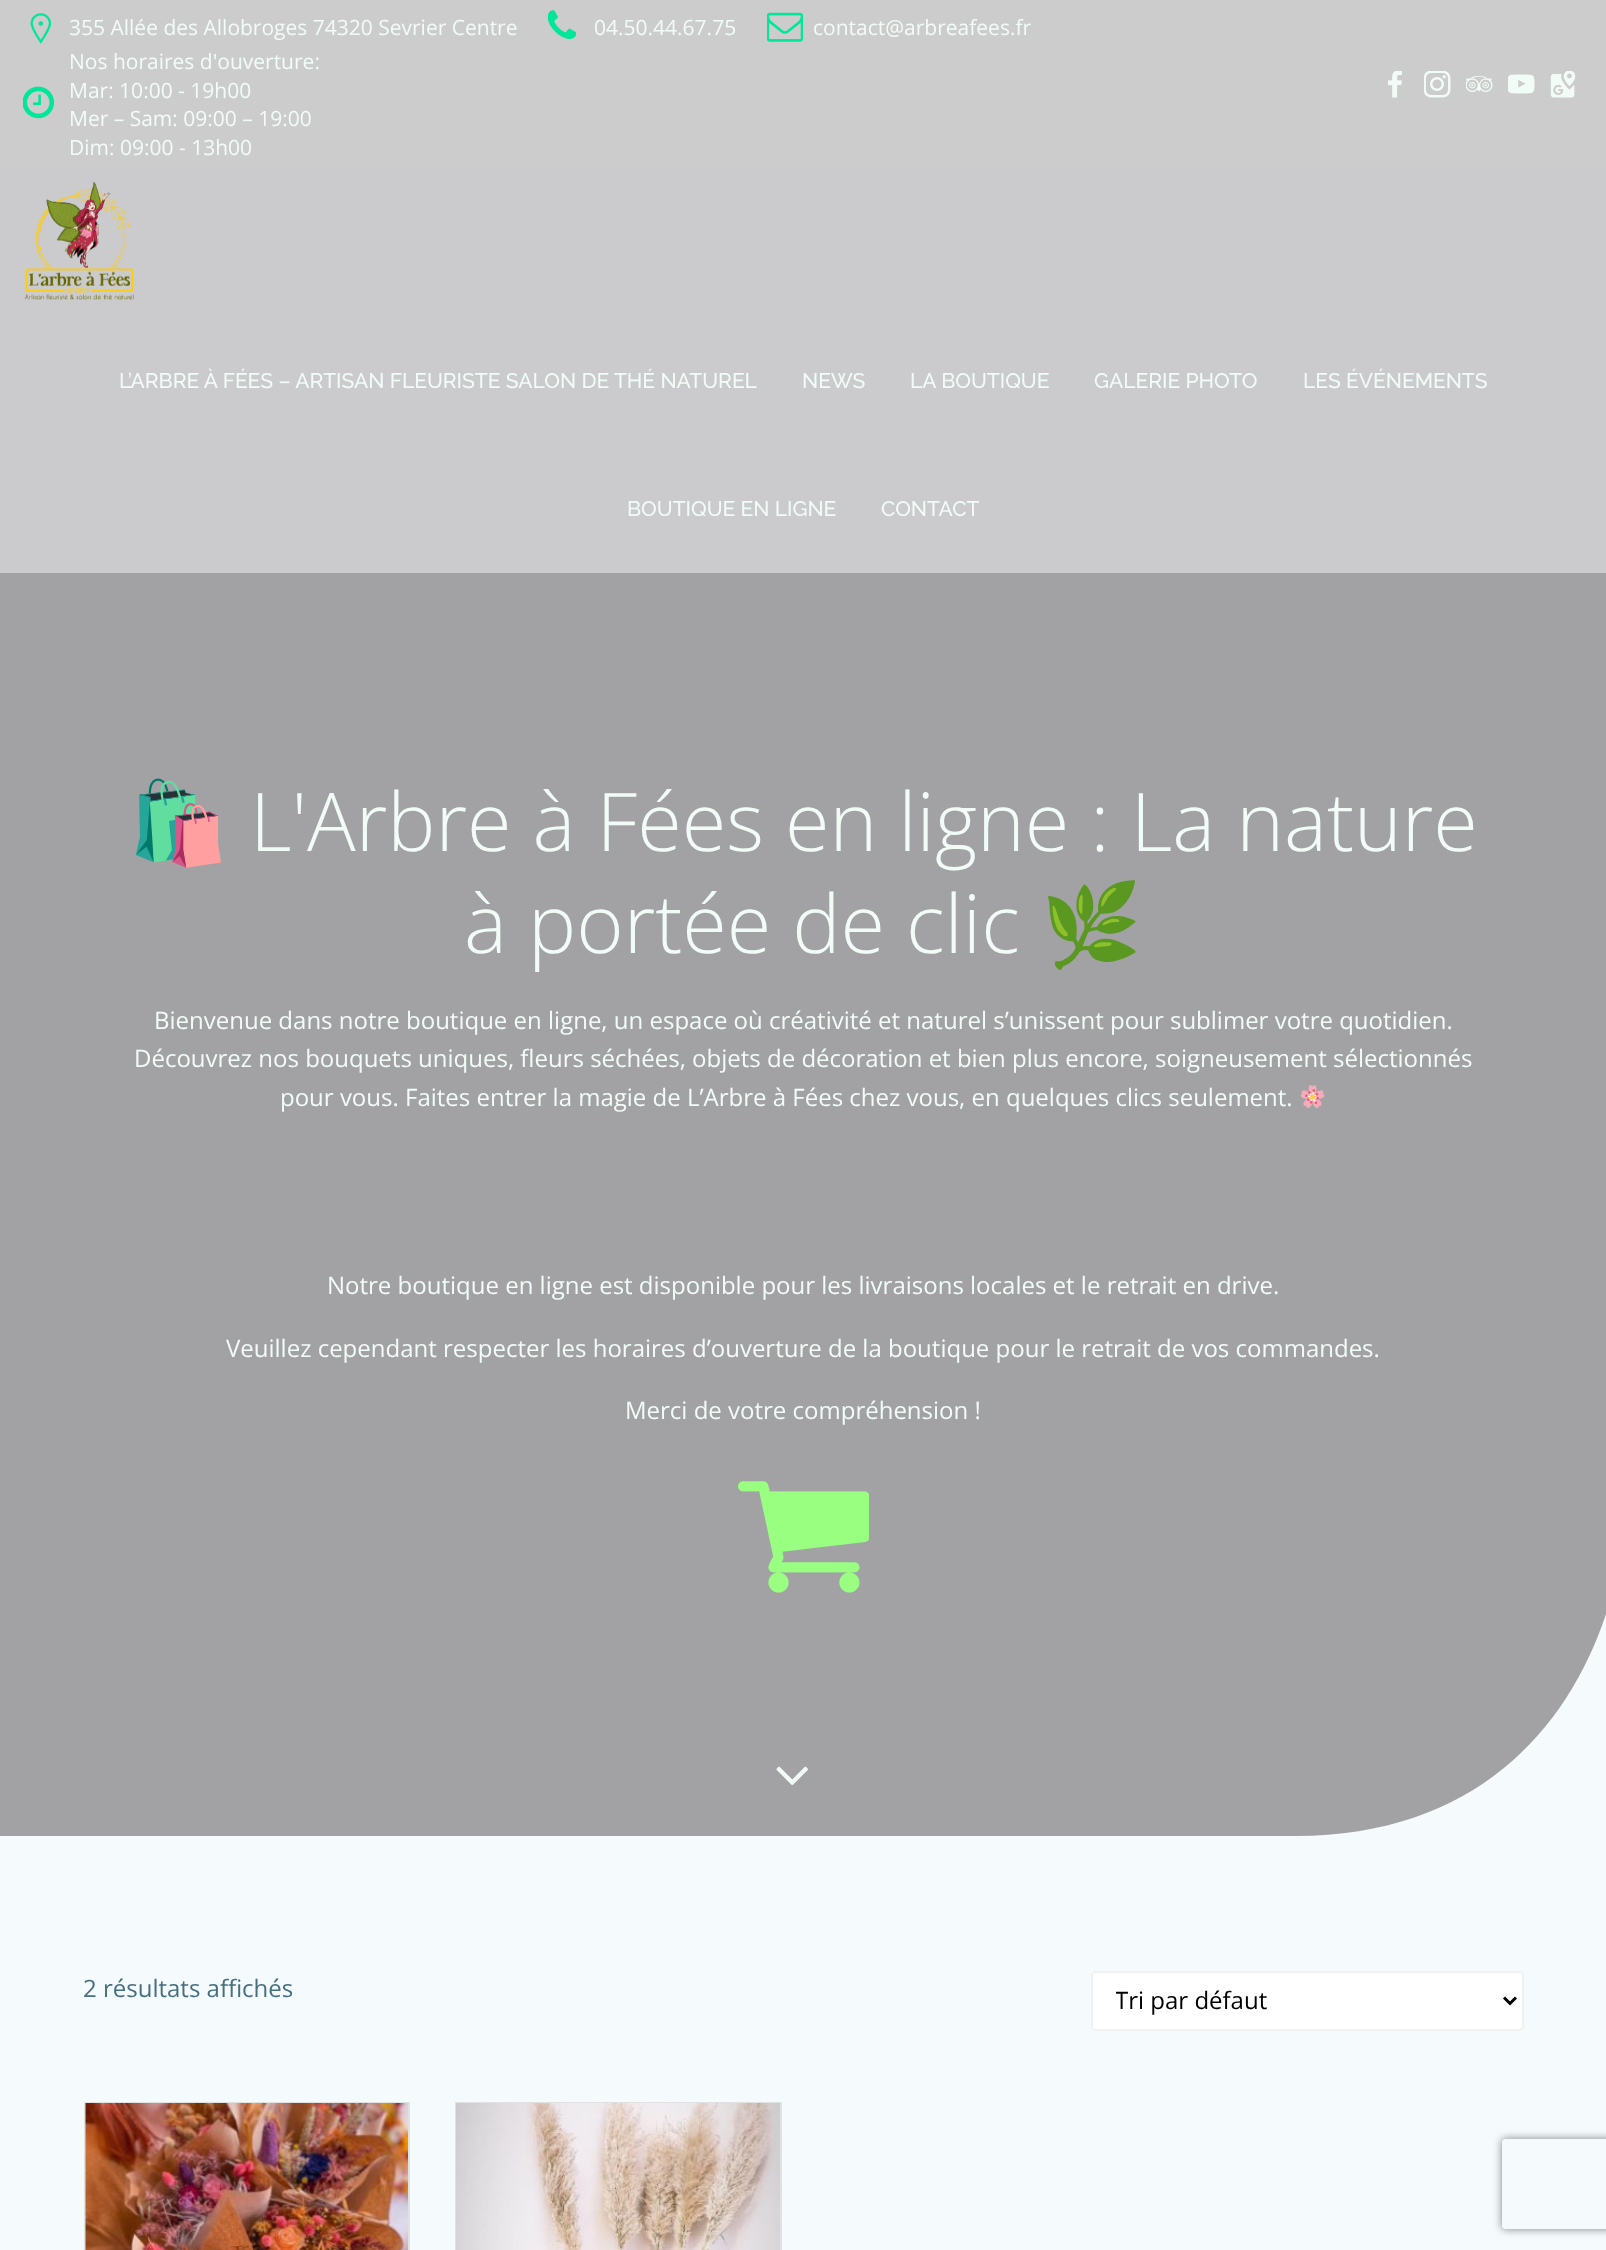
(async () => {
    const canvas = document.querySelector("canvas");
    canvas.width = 1606;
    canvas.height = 2250;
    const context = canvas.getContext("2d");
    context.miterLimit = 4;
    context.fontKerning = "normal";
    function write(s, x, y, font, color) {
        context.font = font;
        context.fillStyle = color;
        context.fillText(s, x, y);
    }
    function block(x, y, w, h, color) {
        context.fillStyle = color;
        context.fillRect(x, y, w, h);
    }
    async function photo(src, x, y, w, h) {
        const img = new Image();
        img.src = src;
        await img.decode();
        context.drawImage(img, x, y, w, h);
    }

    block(0, 0, 1606, 2250, "rgb(245, 250, 253)");
    block(0, 0, 1606, 168, "rgb(204, 204, 205)");
    await photo("media/1.png", 30, 13, 22, 31);
    write("355 Allée des Allobroges 74320 Sevrier Centre", 69, 35, "21px Open Sans", "rgb(242, 252, 247)");
    await photo("media/2.png", 548, 10, 28, 30);
    write("04.50.44.67.75", 594, 35, "21px Open Sans", "rgb(242, 252, 247)");
    await photo("media/3.png", 767, 12, 36, 30);
    write("contact@arbreafees.fr", 813, 35, "21px Open Sans", "rgb(242, 252, 247)");
    await photo("media/4.png", 23, 86, 31, 33);
    write("Nos horaires d'ouverture:", 69, 69, "21px Open Sans", "rgb(242, 252, 247)");
    write("Mar: 10:00 - 19h00", 69, 98, "21px Open Sans", "rgb(242, 252, 247)");
    write("Mer – Sam: 09:00 – 19:00", 69, 126, "21px Open Sans", "rgb(242, 252, 247)");
    write("Dim: 09:00 - 13h00", 69, 155, "21px Open Sans", "rgb(242, 252, 247)");
    await photo("media/5.png", 1388, 71, 14, 27);
    await photo("media/6.png", 1424, 71, 27, 27);
    await photo("media/7.png", 1466, 76, 27, 16);
    await photo("media/8.png", 1508, 74, 27, 20);
    await photo("media/9.png", 1550, 71, 26, 27);
    block(0, 168, 1606, 405, "rgb(203, 203, 206)");
    await photo("media/10.png", 24, 182, 110, 118);
    write("L’ARBRE À FÉES – ARTISAN FLEURISTE SALON DE THÉ NATUREL", 119, 388, "500 21px Raleway", "rgb(242, 252, 247)");
    write("NEWS", 802, 388, "500 21px Raleway", "rgb(242, 252, 247)");
    write("LA BOUTIQUE", 910, 388, "500 21px Raleway", "rgb(242, 252, 247)");
    write("GALERIE PHOTO", 1094, 388, "500 21px Raleway", "rgb(242, 252, 247)");
    write("LES ÉVÉNEMENTS", 1303, 388, "500 21px Raleway", "rgb(242, 252, 247)");
    write("BOUTIQUE EN LIGNE", 627, 516, "500 21px Raleway", "rgb(242, 252, 247)");
    write("CONTACT", 881, 516, "500 21px Raleway", "rgb(242, 252, 247)");
    block(0, 573, 1606, 1263, "rgb(162, 162, 165)");
    write("🛍️", 128, 851, "81px Noto Color Emoji", "rgb(242, 252, 247)");
    write("L'Arbre à Fées en ligne : La nature", 250, 851, "300 81px Open Sans", "rgb(242, 252, 247)");
    write("à portée de clic", 464, 953, "300 81px Open Sans", "rgb(242, 252, 247)");
    write("🌿", 1041, 953, "81px Noto Color Emoji", "rgb(242, 252, 247)");
    write("Bienvenue dans notre boutique en ligne, un espace où créativité et naturel s’unissent pour sublimer votre quotidien.", 154, 1029, "24px Open Sans", "rgb(242, 252, 247)");
    write("Découvrez nos bouquets uniques, fleurs séchées, objets de décoration et bien plus encore, soigneusement sélectionnés", 134, 1067, "24px Open Sans", "rgb(242, 252, 247)");
    write("pour vous. Faites entrer la magie de L’Arbre à Fées chez vous, en quelques clics seulement.", 280, 1106, "24px Open Sans", "rgb(242, 252, 247)");
    await photo("media/11.png", 1301, 1085, 24, 23);
    write("Notre boutique en ligne est disponible pour les livraisons locales et le retrait en drive.", 327, 1294, "24px Open Sans", "rgb(242, 252, 247)");
    write("Veuillez cependant respecter les horaires d’ouverture de la boutique pour le retrait de vos commandes.", 226, 1357, "24px Open Sans", "rgb(242, 252, 247)");
    write("Merci de votre compréhension !", 625, 1419, "24px Open Sans", "rgb(242, 252, 247)");
    await photo("media/12.png", 738, 1481, 131, 112);
    await photo("media/13.png", 776, 1766, 32, 19);
    context.fillStyle = "rgb(245, 250, 253)";
    context.beginPath();
    context.moveTo(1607, 1836);
    context.lineTo(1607, 1611);
    context.bezierCurveTo(1569, 1729, 1475, 1836, 1296, 1836);
    context.closePath();
    context.fill();
    write("2 résultats affichés", 83, 1997, "24px Open Sans", "rgb(70, 112, 127)");
    context.fillStyle = "rgb(255, 255, 255)";
    context.beginPath();
    context.roundRect(1092, 1972, 431, 58, 4);
    context.fill();
    context.strokeStyle = "rgb(241, 241, 241)";
    context.lineWidth = 2;
    context.stroke();
    context.beginPath();
    context.moveTo(1504, 1997.5);
    context.lineTo(1510, 2003.5);
    context.lineTo(1516, 1997.5);
    context.strokeStyle = "rgb(0, 0, 0)";
    context.lineWidth = 3;
    context.stroke();
    context.save();
    context.beginPath();
    context.rect(1116, 1983, 365, 36);
    context.clip();
    write("Tri par défaut", 1115, 2009, "24px Open Sans", "rgb(0, 0, 0)");
    context.restore();
    context.strokeStyle = "rgb(224, 225, 225)";
    context.lineWidth = 2;
    context.strokeRect(85, 2103, 324, 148);
    await photo("media/14.png", 85, 2103, 323, 147);
    context.strokeRect(456, 2103, 325, 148);
    await photo("media/15.png", 456, 2103, 324, 147);
    context.save();
    context.beginPath();
    context.moveTo(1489, 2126);
    context.lineTo(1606, 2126);
    context.lineTo(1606, 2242);
    context.lineTo(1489, 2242);
    context.closePath();
    context.moveTo(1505, 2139);
    context.lineTo(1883, 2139);
    context.bezierCurveTo(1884.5, 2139, 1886, 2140.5, 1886, 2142);
    context.lineTo(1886, 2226);
    context.bezierCurveTo(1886, 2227.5, 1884.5, 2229, 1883, 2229);
    context.lineTo(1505, 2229);
    context.bezierCurveTo(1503.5, 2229, 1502, 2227.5, 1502, 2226);
    context.lineTo(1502, 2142);
    context.bezierCurveTo(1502, 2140.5, 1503.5, 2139, 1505, 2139);
    context.closePath();
    context.clip("evenodd");
    context.fillStyle = "rgb(128, 128, 128)";
    context.filter = "blur(4px)";
    context.beginPath();
    context.roundRect(1502, 2139, 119, 90, 3);
    context.fill();
    context.filter = "none";
    context.restore();
})();
